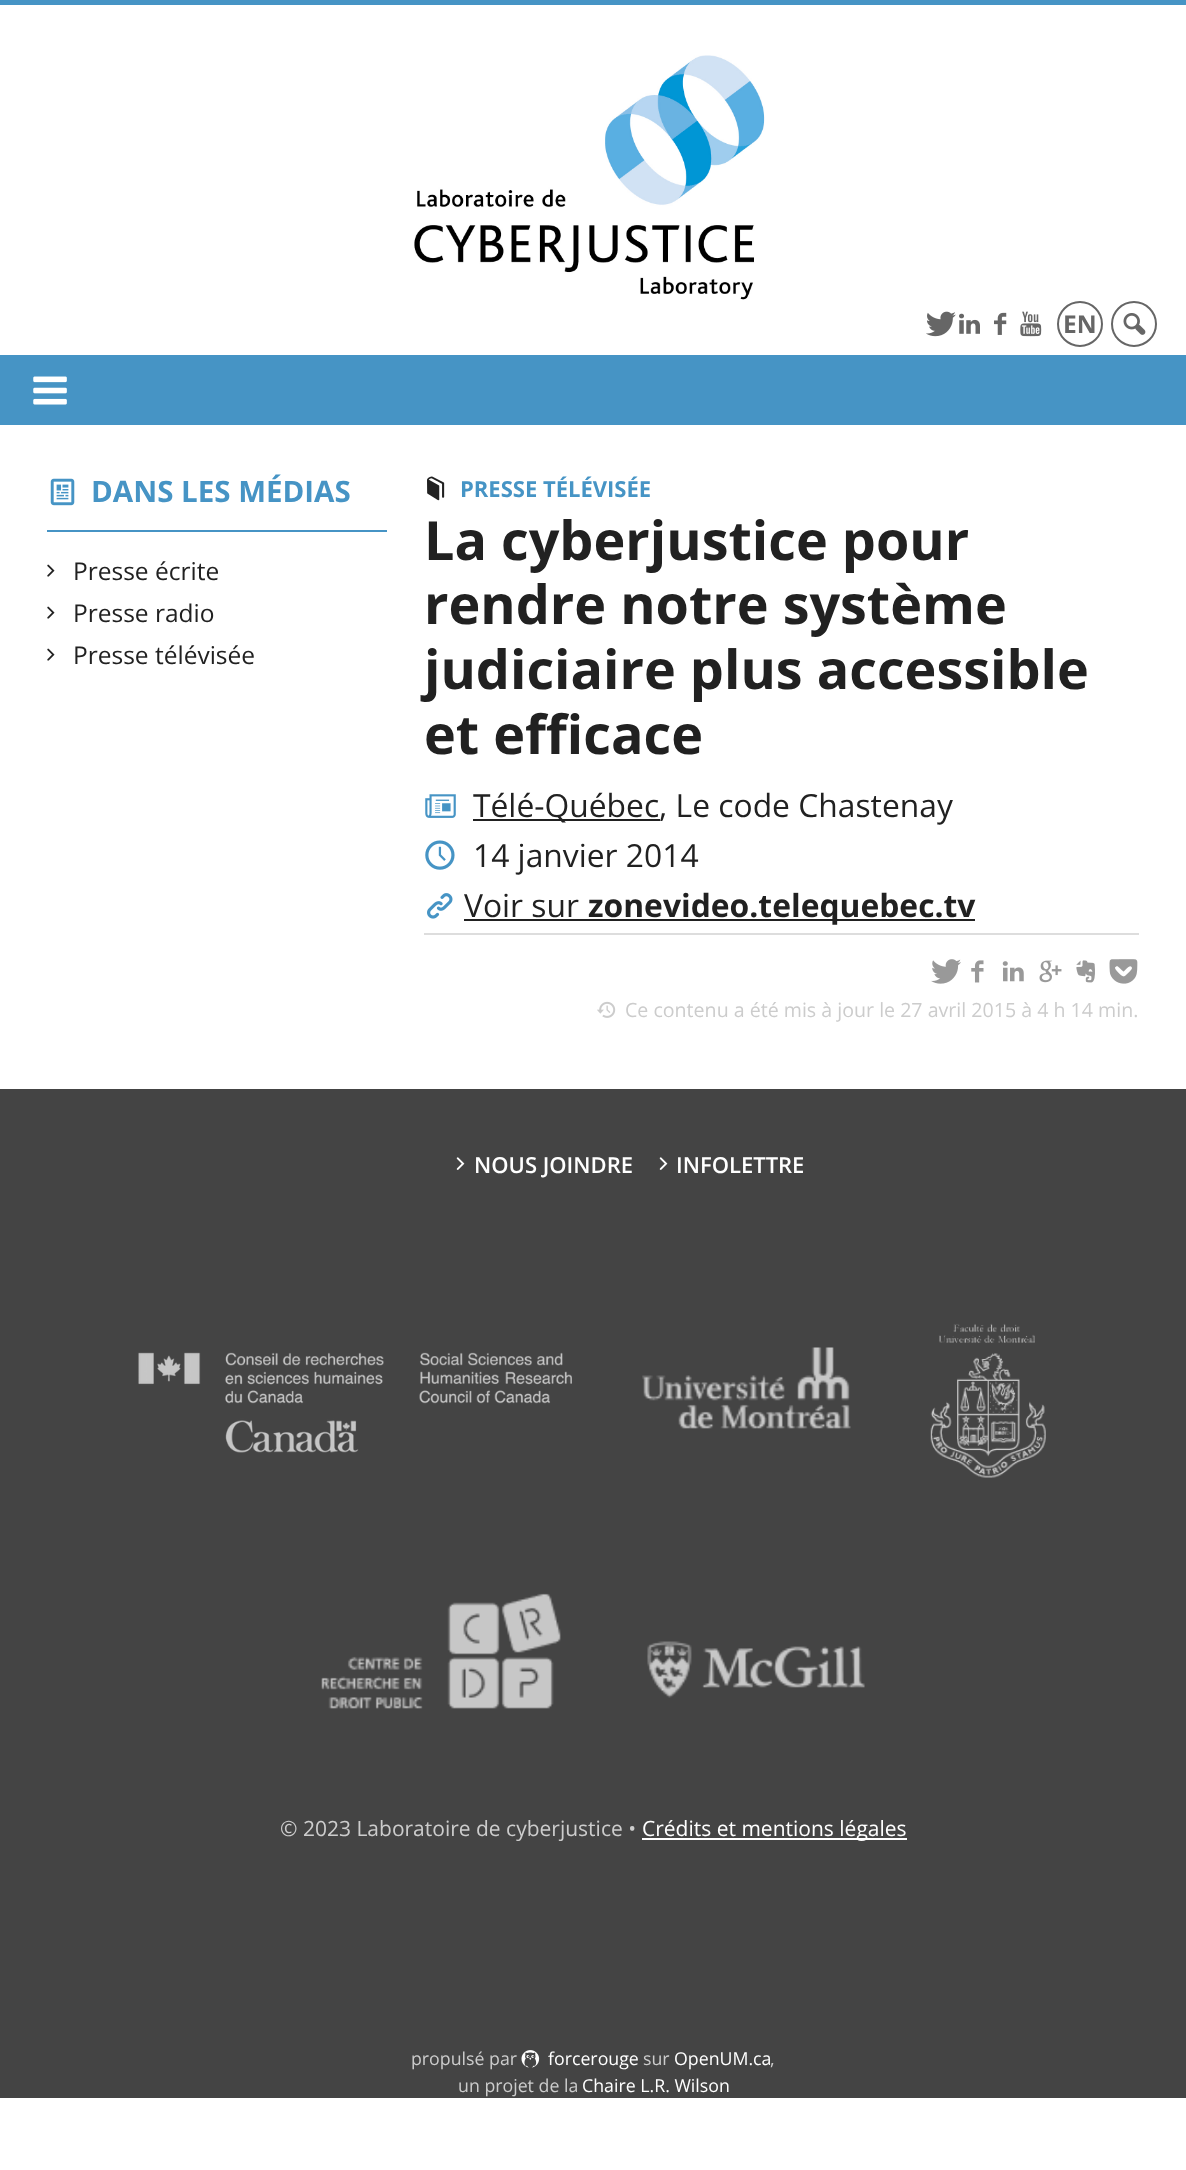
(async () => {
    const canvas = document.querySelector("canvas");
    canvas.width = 1186;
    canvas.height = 2170;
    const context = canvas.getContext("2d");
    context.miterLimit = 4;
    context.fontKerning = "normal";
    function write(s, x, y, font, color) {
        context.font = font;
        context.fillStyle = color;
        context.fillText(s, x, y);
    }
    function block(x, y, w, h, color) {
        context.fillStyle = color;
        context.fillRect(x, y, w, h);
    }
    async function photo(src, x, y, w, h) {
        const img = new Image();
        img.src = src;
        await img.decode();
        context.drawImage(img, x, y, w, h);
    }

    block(0, 0, 1186, 2170, "rgb(255, 255, 255)");
    block(0, 0, 1186, 5, "rgb(70, 148, 197)");
    await photo("media/1.png", 414, 55, 351, 245);
    await photo("media/2.png", 926, 311, 30, 26);
    await photo("media/3.png", 959, 313, 21, 21);
    await photo("media/4.png", 994, 312, 13, 23);
    await photo("media/5.png", 1020, 311, 22, 26);
    context.beginPath();
    context.arc(1080, 324, 22, 0, Math.PI * 2);
    context.strokeStyle = "rgb(102, 102, 102)";
    context.lineWidth = 2;
    context.stroke();
    write("EN", 1063, 333, "bold 24.5px Open Sans", "rgb(102, 102, 102)");
    context.beginPath();
    context.arc(1134, 324, 22, 0, Math.PI * 2);
    context.stroke();
    await photo("media/6.png", 1123, 313, 23, 22);
    block(0, 355, 1186, 70, "rgb(70, 148, 197)");
    await photo("media/7.png", 33, 376, 34, 29);
    block(47, 530, 340, 2, "rgb(70, 148, 197)");
    await photo("media/8.png", 50, 478, 25, 28);
    write("DANS LES MÉDIAS", 91, 502, "bold 29.5px Open Sans", "rgb(70, 148, 197)");
    await photo("media/9.png", 47, 564, 8, 13);
    write("Presse écrite", 73, 580, "24.5px Open Sans", "rgb(33, 33, 33)");
    await photo("media/9.png", 47, 606, 8, 13);
    write("Presse radio", 73, 622, "24.5px Open Sans", "rgb(33, 33, 33)");
    await photo("media/9.png", 47, 648, 8, 13);
    write("Presse télévisée", 73, 664, "24.5px Open Sans", "rgb(33, 33, 33)");
    await photo("media/10.png", 427, 476, 18, 25);
    write("PRESSE TÉLÉVISÉE", 460, 497, "bold 22px Open Sans", "rgb(70, 148, 197)");
    write("La cyberjustice pour", 424, 560, "bold 53.9px Open Sans", "rgb(33, 33, 33)");
    write("rendre notre système", 424, 624, "bold 53.9px Open Sans", "rgb(33, 33, 33)");
    write("judiciaire plus accessible", 424, 689, "bold 53.9px Open Sans", "rgb(33, 33, 33)");
    write("et efficace", 424, 754, "bold 53.9px Open Sans", "rgb(33, 33, 33)");
    await photo("media/11.png", 425, 794, 31, 24);
    block(473, 819, 187, 2, "rgb(33, 33, 33)");
    write("Télé-Québec, Le code Chastenay", 473, 817, "31.8px Open Sans", "rgb(33, 33, 33)");
    await photo("media/12.png", 425, 840, 30, 30);
    write("14 janvier 2014", 473, 867, "31.8px Open Sans", "rgb(33, 33, 33)");
    await photo("media/13.png", 427, 893, 26, 26);
    write("Voir sur", 464, 917, "31.8px Open Sans", "rgb(33, 33, 33)");
    block(464, 919, 511, 2, "rgb(33, 33, 33)");
    write("zonevideo.telequebec.tv", 588, 917, "bold 31.8px Open Sans", "rgb(33, 33, 33)");
    block(424, 933, 715, 2, "rgb(221, 221, 221)");
    await photo("media/14.png", 931, 959, 30, 25);
    await photo("media/15.png", 971, 960, 13, 23);
    await photo("media/16.png", 1002, 961, 22, 21);
    await photo("media/17.png", 1039, 960, 23, 23);
    await photo("media/18.png", 1076, 960, 19, 23);
    await photo("media/19.png", 1109, 959, 29, 25);
    await photo("media/20.png", 597, 1001, 19, 17);
    write("Ce contenu a été mis à jour le 27 avril 2015 à 4 h 14 min.", 625, 1017, "19.6px Open Sans", "rgb(204, 204, 204)");
    block(0, 1089, 1186, 1009, "rgb(68, 68, 68)");
    await photo("media/21.png", 456, 1157, 9, 13);
    write("NOUS JOINDRE", 474, 1173, "600 22px Open Sans", "rgb(255, 255, 255)");
    await photo("media/21.png", 659, 1157, 9, 13);
    write("INFOLETTRE", 676, 1173, "600 22px Open Sans", "rgb(255, 255, 255)");
    await photo("media/22.png", 138, 1352, 434, 101);
    await photo("media/23.png", 642, 1347, 209, 82);
    await photo("media/24.png", 930, 1323, 116, 155);
    await photo("media/25.png", 321, 1593, 240, 116);
    await photo("media/26.png", 647, 1641, 218, 57);
    write("© 2023 Laboratoire de cyberjustice •", 280, 1836, "21px Open Sans", "rgb(204, 204, 204)");
    block(642, 1838, 265, 2, "rgb(255, 255, 255)");
    write("Crédits et mentions légales", 642, 1836, "21px Open Sans", "rgb(255, 255, 255)");
    write("propulsé par", 411, 2065, "17.75px Open Sans", "rgb(204, 204, 204)");
    await photo("media/27.png", 521, 2050, 19, 18);
    write("forcerouge", 548, 2065, "17.75px Open Sans", "rgb(255, 255, 255)");
    write("sur", 643, 2065, "17.75px Open Sans", "rgb(204, 204, 204)");
    write("OpenUM.ca", 674, 2065, "17.75px Open Sans", "rgb(255, 255, 255)");
    write(",", 770, 2065, "17.75px Open Sans", "rgb(204, 204, 204)");
    write("un projet de la", 458, 2092, "17.75px Open Sans", "rgb(204, 204, 204)");
    write("Chaire L.R. Wilson", 582, 2092, "17.75px Open Sans", "rgb(255, 255, 255)");
})();
